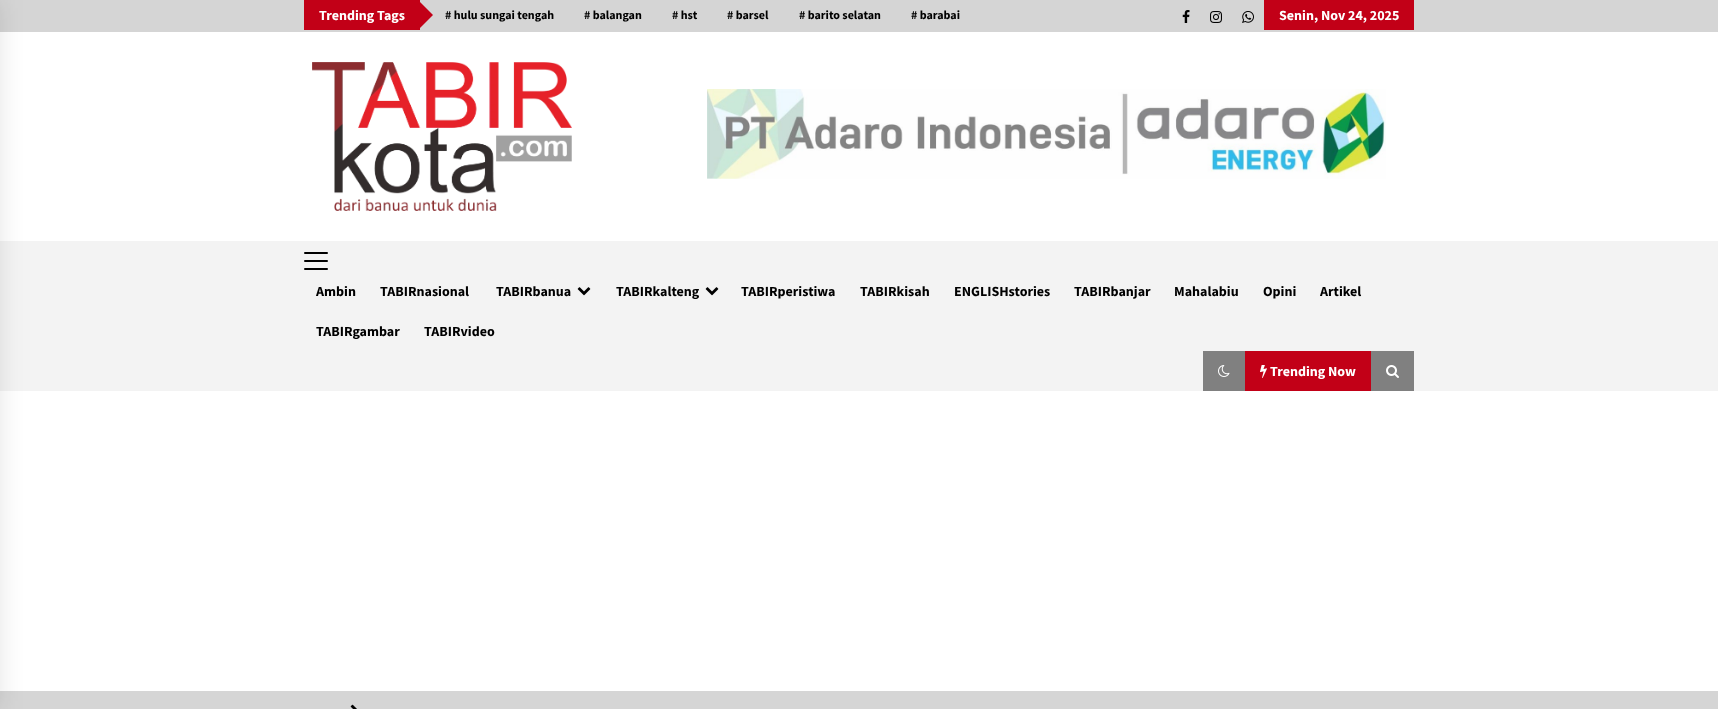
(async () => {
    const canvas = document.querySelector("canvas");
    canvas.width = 1718;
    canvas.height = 709;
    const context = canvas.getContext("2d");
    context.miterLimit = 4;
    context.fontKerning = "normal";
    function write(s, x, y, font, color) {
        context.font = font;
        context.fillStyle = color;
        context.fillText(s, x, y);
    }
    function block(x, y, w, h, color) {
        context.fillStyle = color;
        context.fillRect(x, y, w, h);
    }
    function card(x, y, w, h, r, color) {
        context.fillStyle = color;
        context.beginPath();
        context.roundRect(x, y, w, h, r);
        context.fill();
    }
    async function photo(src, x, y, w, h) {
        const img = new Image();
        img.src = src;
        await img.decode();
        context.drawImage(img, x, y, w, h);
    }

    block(0, 0, 1718, 709, "rgb(255, 255, 255)");
    block(0, 0, 1718, 32, "rgb(213, 213, 213)");
    block(0, 241, 1718, 150, "rgb(243, 243, 243)");
    block(0, 691, 1718, 18, "rgb(213, 213, 213)");
    context.fillStyle = "rgba(0, 0, 0, 0.1)";
    context.filter = "blur(12.5px)";
    context.beginPath();
    context.rect(-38, 0, 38, 709);
    context.fill();
    context.filter = "none";
    block(304, 0, 116, 30, "rgb(194, 0, 23)");
    write("Trending Tags", 319, 20, "bold 14px Source Sans Pro", "rgb(255, 255, 255)");
    context.fillStyle = "rgb(194, 0, 23)";
    context.beginPath();
    context.moveTo(420, 28);
    context.lineTo(420, 2);
    context.lineTo(433, 15);
    context.closePath();
    context.fill();
    write("# hulu sungai tengah", 445, 19, "bold 12px Source Sans Pro", "rgb(0, 0, 0)");
    write("# balangan", 584, 19, "bold 12px Source Sans Pro", "rgb(0, 0, 0)");
    write("# hst", 672, 19, "bold 12px Source Sans Pro", "rgb(0, 0, 0)");
    write("# barsel", 727, 19, "bold 12px Source Sans Pro", "rgb(0, 0, 0)");
    write("# barito selatan", 799, 19, "bold 12px Source Sans Pro", "rgb(0, 0, 0)");
    write("# barabai", 911, 19, "bold 12px Source Sans Pro", "rgb(0, 0, 0)");
    await photo("media/1.png", 1182, 10, 8, 13);
    await photo("media/2.png", 1210, 11, 12, 12);
    await photo("media/3.png", 1242, 11, 12, 12);
    block(1264, 0, 150, 30, "rgb(194, 0, 23)");
    write("Senin, Nov 24, 2025", 1279, 20, "bold 14px Source Sans Pro", "rgb(255, 255, 255)");
    await photo("media/4.png", 312, 62, 260, 149);
    await photo("media/5.png", 707, 89, 679, 90);
    card(304, 252, 24, 2, 1, "rgb(0, 0, 0)");
    card(304, 268, 24, 2, 1, "rgb(0, 0, 0)");
    card(304, 260, 24, 2, 1, "rgb(0, 0, 0)");
    write("Ambin", 316, 296, "bold 14px Source Sans Pro", "rgb(0, 0, 0)");
    write("TABIRnasional", 380, 296, "bold 14px Source Sans Pro", "rgb(0, 0, 0)");
    write("TABIRbanua", 496, 296, "bold 14px Source Sans Pro", "rgb(0, 0, 0)");
    await photo("media/6.png", 577, 287, 14, 9);
    write("TABIRkalteng", 616, 296, "bold 14px Source Sans Pro", "rgb(0, 0, 0)");
    await photo("media/6.png", 705, 287, 14, 9);
    write("TABIRperistiwa", 741, 296, "bold 14px Source Sans Pro", "rgb(0, 0, 0)");
    write("TABIRkisah", 860, 296, "bold 14px Source Sans Pro", "rgb(0, 0, 0)");
    write("ENGLISHstories", 954, 296, "bold 14px Source Sans Pro", "rgb(0, 0, 0)");
    write("TABIRbanjar", 1074, 296, "bold 14px Source Sans Pro", "rgb(0, 0, 0)");
    write("Mahalabiu", 1174, 296, "bold 14px Source Sans Pro", "rgb(0, 0, 0)");
    write("Opini", 1263, 296, "bold 14px Source Sans Pro", "rgb(0, 0, 0)");
    write("Artikel", 1320, 296, "bold 14px Source Sans Pro", "rgb(0, 0, 0)");
    write("TABIRgambar", 316, 336, "bold 14px Source Sans Pro", "rgb(0, 0, 0)");
    write("TABIRvideo", 424, 336, "bold 14px Source Sans Pro", "rgb(0, 0, 0)");
    block(1203, 351, 42, 40, "rgb(128, 128, 128)");
    await photo("media/7.png", 1218, 365, 12, 12);
    block(1245, 351, 126, 40, "rgb(194, 0, 23)");
    await photo("media/8.png", 1260, 365, 7, 13);
    write("Trending Now", 1270, 376, "bold 14px Source Sans Pro", "rgb(255, 255, 255)");
    block(1371, 351, 43, 40, "rgb(128, 128, 128)");
    await photo("media/9.png", 1386, 365, 13, 13);
    await photo("media/10.png", 350, 704, 7, 5);
})();
